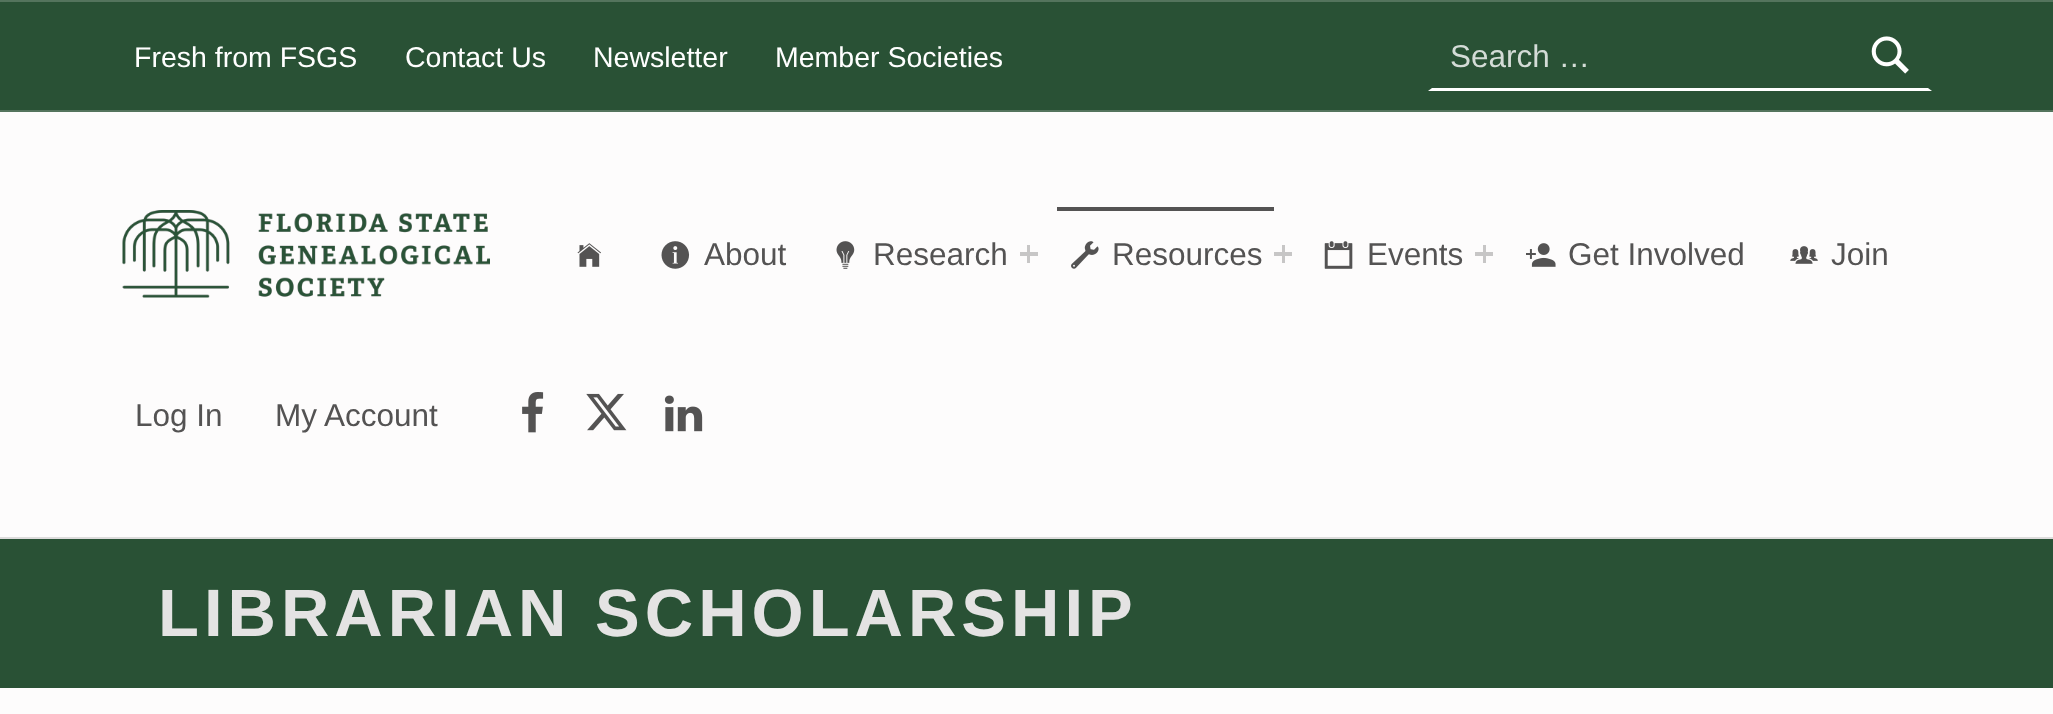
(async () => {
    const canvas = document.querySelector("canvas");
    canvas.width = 2053;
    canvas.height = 714;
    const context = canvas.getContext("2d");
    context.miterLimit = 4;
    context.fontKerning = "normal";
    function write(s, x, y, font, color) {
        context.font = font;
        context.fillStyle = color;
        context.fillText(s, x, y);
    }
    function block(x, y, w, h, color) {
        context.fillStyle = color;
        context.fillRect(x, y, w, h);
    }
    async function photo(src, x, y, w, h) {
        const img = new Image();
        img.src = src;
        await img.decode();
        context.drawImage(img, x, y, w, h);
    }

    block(0, 0, 2053, 714, "rgb(253, 252, 252)");
    block(0, 2, 2053, 108, "rgb(41, 81, 53)");
    block(0, 0, 2053, 2, "rgb(84, 116, 93)");
    block(0, 110, 2053, 2, "rgb(84, 116, 93)");
    write("Fresh from FSGS", 134, 67, "28.5px Liberation Sans", "rgb(255, 255, 255)");
    write("Contact Us", 405, 67, "28.5px Liberation Sans", "rgb(255, 255, 255)");
    write("Newsletter", 593, 67, "28.5px Liberation Sans", "rgb(255, 255, 255)");
    write("Member Societies", 775, 67, "28.5px Liberation Sans", "rgb(255, 255, 255)");
    context.beginPath();
    context.moveTo(1932, 91);
    context.lineTo(1428, 91);
    context.lineTo(1432, 88);
    context.lineTo(1928, 88);
    context.closePath();
    context.fill();
    write("Search …", 1450, 67, "31.5px Liberation Sans", "rgb(212, 220, 215)");
    await photo("media/1.png", 1871, 36, 38, 38);
    block(0, 537, 2053, 2, "rgb(221, 220, 220)");
    await photo("media/2.png", 122, 210, 368, 88);
    await photo("media/3.png", 577, 243, 24, 24);
    await photo("media/4.png", 661, 241, 29, 28);
    write("About", 704, 265, "31.5px Liberation Sans", "rgb(84, 83, 83)");
    await photo("media/5.png", 836, 241, 19, 28);
    write("Research", 873, 265, "31.5px Liberation Sans", "rgb(84, 83, 83)");
    block(1027, 245, 3, 18, "rgb(199, 198, 198)");
    block(1020, 252, 18, 4, "rgb(199, 198, 198)");
    block(1057, 207, 217, 4, "rgb(84, 83, 83)");
    await photo("media/6.png", 1071, 241, 28, 28);
    write("Resources", 1112, 265, "31.5px Liberation Sans", "rgb(84, 83, 83)");
    block(1282, 245, 3, 18, "rgb(199, 198, 198)");
    block(1274, 252, 18, 4, "rgb(199, 198, 198)");
    await photo("media/7.png", 1324, 241, 29, 28);
    write("Events", 1367, 265, "31.5px Liberation Sans", "rgb(84, 83, 83)");
    block(1483, 245, 3, 18, "rgb(199, 198, 198)");
    block(1475, 252, 18, 4, "rgb(199, 198, 198)");
    await photo("media/8.png", 1526, 243, 30, 24);
    write("Get Involved", 1568, 265, "31.5px Liberation Sans", "rgb(84, 83, 83)");
    await photo("media/9.png", 1790, 246, 28, 18);
    write("Join", 1831, 265, "31.5px Liberation Sans", "rgb(84, 83, 83)");
    write("Log In", 135, 426, "31.5px Liberation Sans", "rgb(84, 83, 83)");
    write("My Account", 275, 426, "31.5px Liberation Sans", "rgb(84, 83, 83)");
    await photo("media/10.png", 522, 392, 22, 41);
    await photo("media/11.png", 586, 393, 41, 38);
    await photo("media/12.png", 664, 395, 39, 37);
    block(0, 539, 2053, 149, "rgb(41, 81, 53)");
    context.letterSpacing = "5px";
    write("LIBRARIAN SCHOLARSHIP", 158, 636, "bold 67px Liberation Sans", "rgb(228, 227, 227)");
})();
